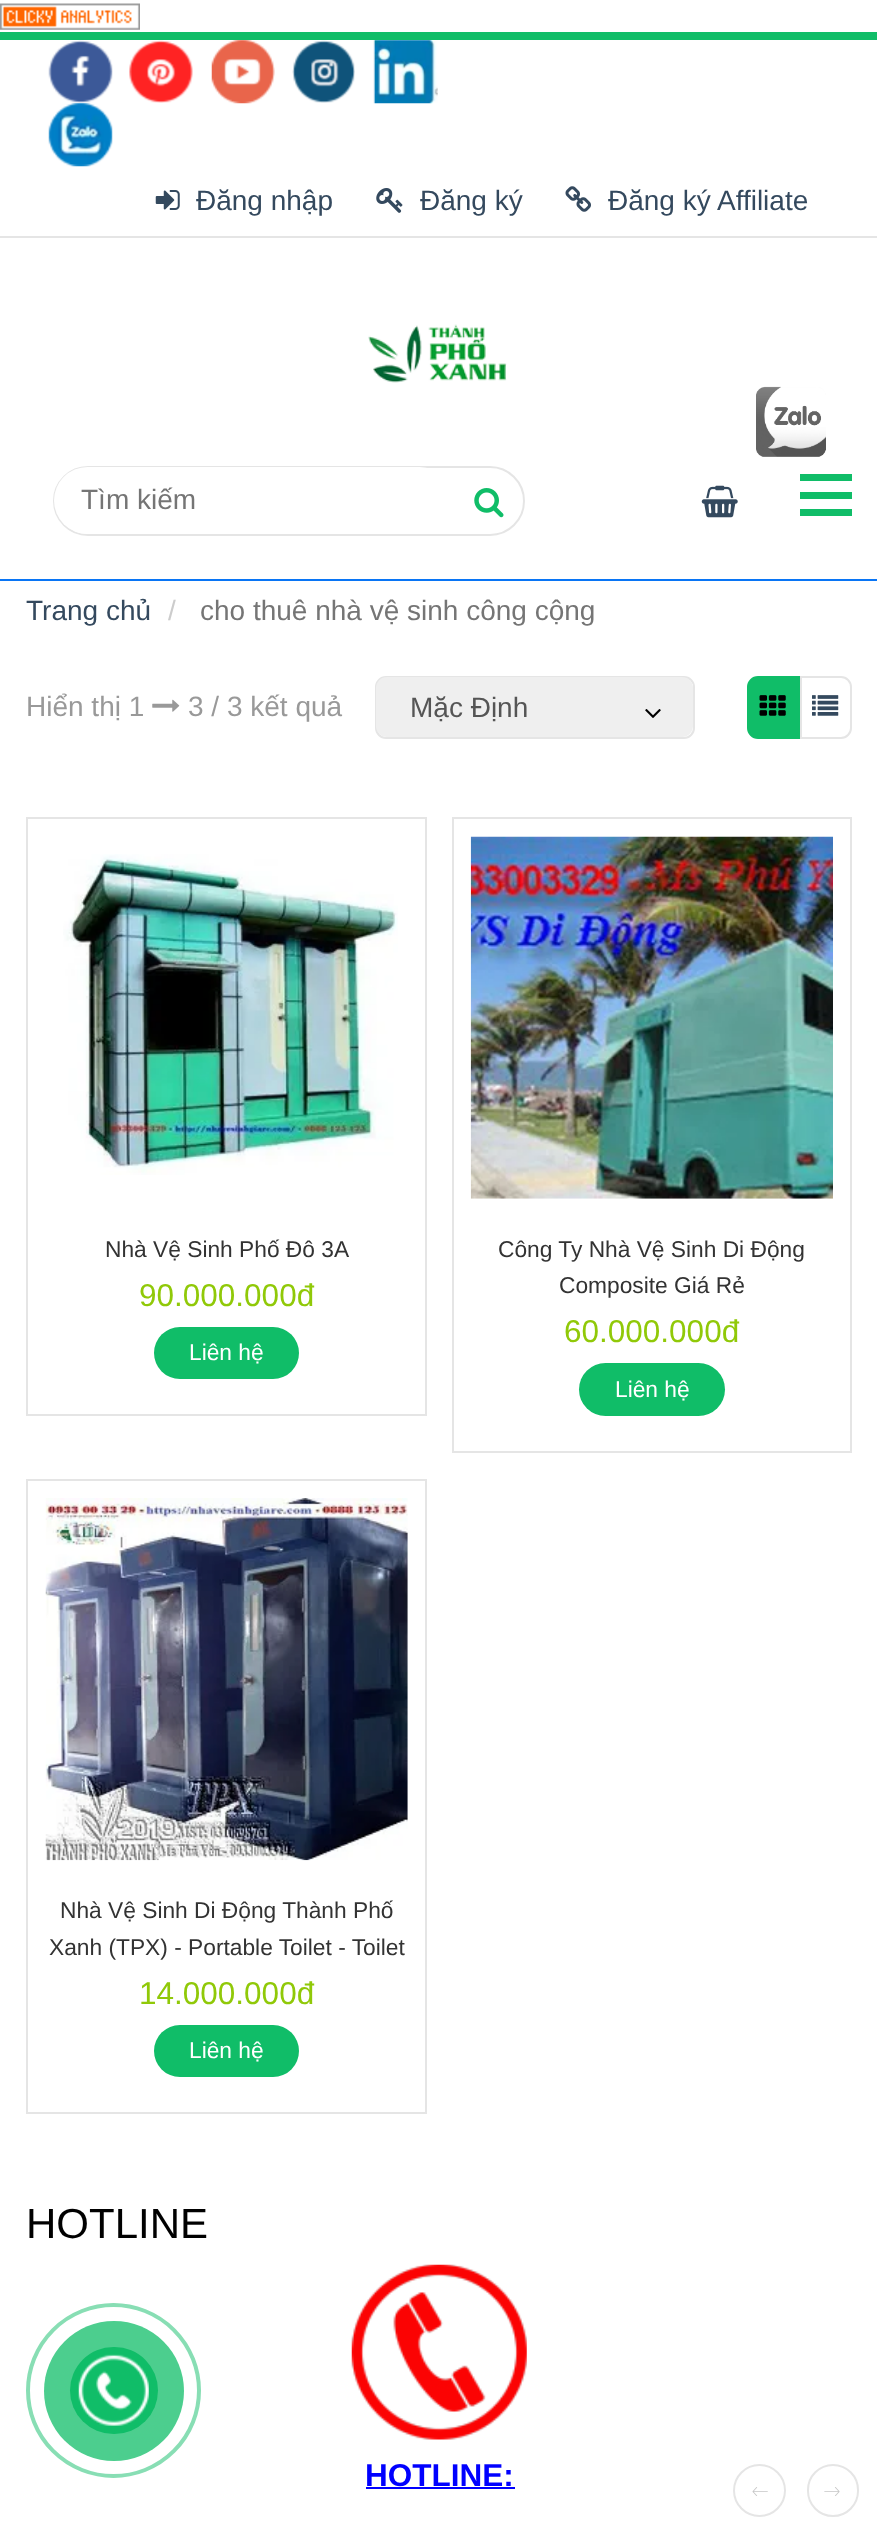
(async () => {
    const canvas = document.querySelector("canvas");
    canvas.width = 877;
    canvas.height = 2521;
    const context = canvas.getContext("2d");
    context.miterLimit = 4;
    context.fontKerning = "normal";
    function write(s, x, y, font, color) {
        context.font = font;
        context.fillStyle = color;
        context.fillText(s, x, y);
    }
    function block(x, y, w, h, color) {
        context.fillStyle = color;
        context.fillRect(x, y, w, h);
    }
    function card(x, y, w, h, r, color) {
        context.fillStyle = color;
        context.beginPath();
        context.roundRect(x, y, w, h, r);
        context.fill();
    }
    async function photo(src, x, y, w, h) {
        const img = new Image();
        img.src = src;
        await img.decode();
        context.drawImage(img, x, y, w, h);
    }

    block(0, 0, 877, 2521, "rgb(255, 255, 255)");
    await photo("media/1.png", 0, 3, 140, 27);
    block(0, 32, 877, 8, "rgb(16, 189, 104)");
    block(0, 236, 877, 2, "rgb(229, 229, 229)");
    await photo("media/2.png", 48, 40, 65, 63);
    await photo("media/3.png", 129, 40, 64, 63);
    await photo("media/4.png", 211, 40, 64, 64);
    await photo("media/5.png", 292, 40, 63, 63);
    await photo("media/6.png", 373, 40, 65, 64);
    await photo("media/7.png", 48, 103, 65, 64);
    await photo("media/8.png", 155, 190, 25, 20);
    write("Đăng nhập", 196, 210, "28px Liberation Sans", "rgb(52, 73, 94)");
    await photo("media/9.png", 376, 188, 27, 25);
    write("Đăng ký", 420, 210, "28px Liberation Sans", "rgb(52, 73, 94)");
    await photo("media/10.png", 565, 186, 26, 26);
    write("Đăng ký Affiliate", 608, 210, "28px Liberation Sans", "rgb(52, 73, 94)");
    block(0, 579, 877, 2, "rgb(9, 117, 245)");
    block(800, 474, 52, 7, "rgb(16, 189, 104)");
    block(800, 492, 52, 7, "rgb(16, 189, 104)");
    block(800, 509, 52, 7, "rgb(16, 189, 104)");
    await photo("media/11.png", 368, 324, 139, 59);
    context.beginPath();
    context.roundRect(54, 467, 470, 68, 34);
    context.strokeStyle = "rgb(229, 229, 229)";
    context.lineWidth = 2;
    context.stroke();
    card(54, 467, 399, 67, 33.5, "rgb(255, 255, 255)");
    write("Tìm kiếm", 81, 509, "28px Liberation Sans", "rgb(117, 117, 117)");
    await photo("media/12.png", 474, 488, 30, 30);
    await photo("media/13.png", 701, 485, 37, 33);
    await photo("media/14.png", 756, 386, 70, 71);
    write("Trang chủ", 26, 620, "28px Liberation Sans", "rgb(52, 73, 94)");
    write("/", 168, 620, "28px Liberation Sans", "rgb(204, 204, 204)");
    write("cho thuê nhà vệ sinh công cộng", 200, 620, "28px Liberation Sans", "rgb(117, 117, 117)");
    write("Hiển thị 1", 26, 716, "28px Liberation Sans", "rgb(153, 153, 153)");
    await photo("media/15.png", 152, 699, 28, 13);
    write("3 / 3 kết quả", 188, 716, "28px Liberation Sans", "rgb(153, 153, 153)");
    context.beginPath();
    context.roundRect(376, 677, 318, 61, 10);
    context.stroke();
    card(376, 677, 317, 60, 11, "rgb(239, 239, 239)");
    write("Mặc Định", 410, 717, "28px Liberation Sans", "rgb(85, 85, 85)");
    await photo("media/16.png", 645, 709, 16, 9);
    context.fillStyle = "rgb(16, 189, 104)";
    context.beginPath();
    context.roundRect(748, 677, 51, 61, [10, 0, 0, 10]);
    context.fill();
    context.strokeStyle = "rgb(16, 189, 104)";
    context.stroke();
    await photo("media/17.png", 759, 695, 27, 21);
    context.beginPath();
    context.roundRect(801, 677, 50, 61, [0, 10, 10, 0]);
    context.strokeStyle = "rgb(229, 229, 229)";
    context.stroke();
    await photo("media/18.png", 812, 695, 27, 21);
    context.strokeRect(27, 818, 399, 597);
    await photo("media/19.png", 63, 854, 335, 321);
    write("Nhà Vệ Sinh Phố Đô 3A", 105, 1257, "22.75px Liberation Sans", "rgb(51, 51, 51)");
    write("90.000.000đ", 139, 1306, "31.5px Liberation Sans", "rgb(144, 201, 8)");
    card(154, 1327, 145, 52, 26, "rgb(16, 189, 104)");
    write("Liên hệ", 189, 1360, "22.75px Liberation Sans", "rgb(255, 255, 255)");
    context.strokeRect(453, 818, 398, 634);
    await photo("media/20.png", 470, 836, 363, 363);
    write("Công Ty Nhà Vệ Sinh Di Động", 498, 1257, "22.75px Liberation Sans", "rgb(51, 51, 51)");
    write("Composite Giá Rẻ", 559, 1293, "22.75px Liberation Sans", "rgb(51, 51, 51)");
    write("60.000.000đ", 564, 1342, "31.5px Liberation Sans", "rgb(144, 201, 8)");
    card(579, 1363, 146, 53, 26.5, "rgb(16, 189, 104)");
    write("Liên hệ", 615, 1397, "22.75px Liberation Sans", "rgb(255, 255, 255)");
    context.strokeRect(27, 1480, 399, 633);
    await photo("media/21.png", 45, 1498, 363, 363);
    write("Nhà Vệ Sinh Di Động Thành Phố", 60, 1918, "22.75px Liberation Sans", "rgb(51, 51, 51)");
    write("Xanh (TPX) - Portable Toilet - Toilet", 49, 1955, "22.75px Liberation Sans", "rgb(51, 51, 51)");
    write("14.000.000đ", 139, 2004, "31.5px Liberation Sans", "rgb(144, 201, 8)");
    card(154, 2025, 145, 52, 26, "rgb(16, 189, 104)");
    write("Liên hệ", 189, 2058, "22.75px Liberation Sans", "rgb(255, 255, 255)");
    write("HOTLINE", 26, 2238, "42px Liberation Sans", "rgb(0, 0, 0)");
    await photo("media/22.png", 351, 2264, 176, 176);
    write("HOTLINE:", 365, 2486, "bold 31.5px Liberation Sans", "rgb(0, 0, 255)");
    block(366, 2487, 149, 2, "rgb(0, 0, 255)");
    context.beginPath();
    context.arc(759.5, 2490.5, 25.5, 0, Math.PI * 2);
    context.stroke();
    await photo("media/23.png", 752, 2487, 16, 9);
    context.beginPath();
    context.roundRect(808, 2465, 50, 51, 25);
    context.stroke();
    await photo("media/24.png", 824, 2487, 16, 9);
    context.beginPath();
    context.arc(113.5, 2390.5, 85.5, 0, Math.PI * 2);
    context.strokeStyle = "rgb(136, 222, 180)";
    context.lineWidth = 4;
    context.stroke();
    context.fillStyle = "rgb(76, 206, 142)";
    context.beginPath();
    context.arc(114, 2391, 70, 0, Math.PI * 2);
    context.fill();
    card(70, 2347, 88, 87, 43.5, "rgb(16, 189, 104)");
    await photo("media/25.png", 78, 2354, 71, 72);
})();
